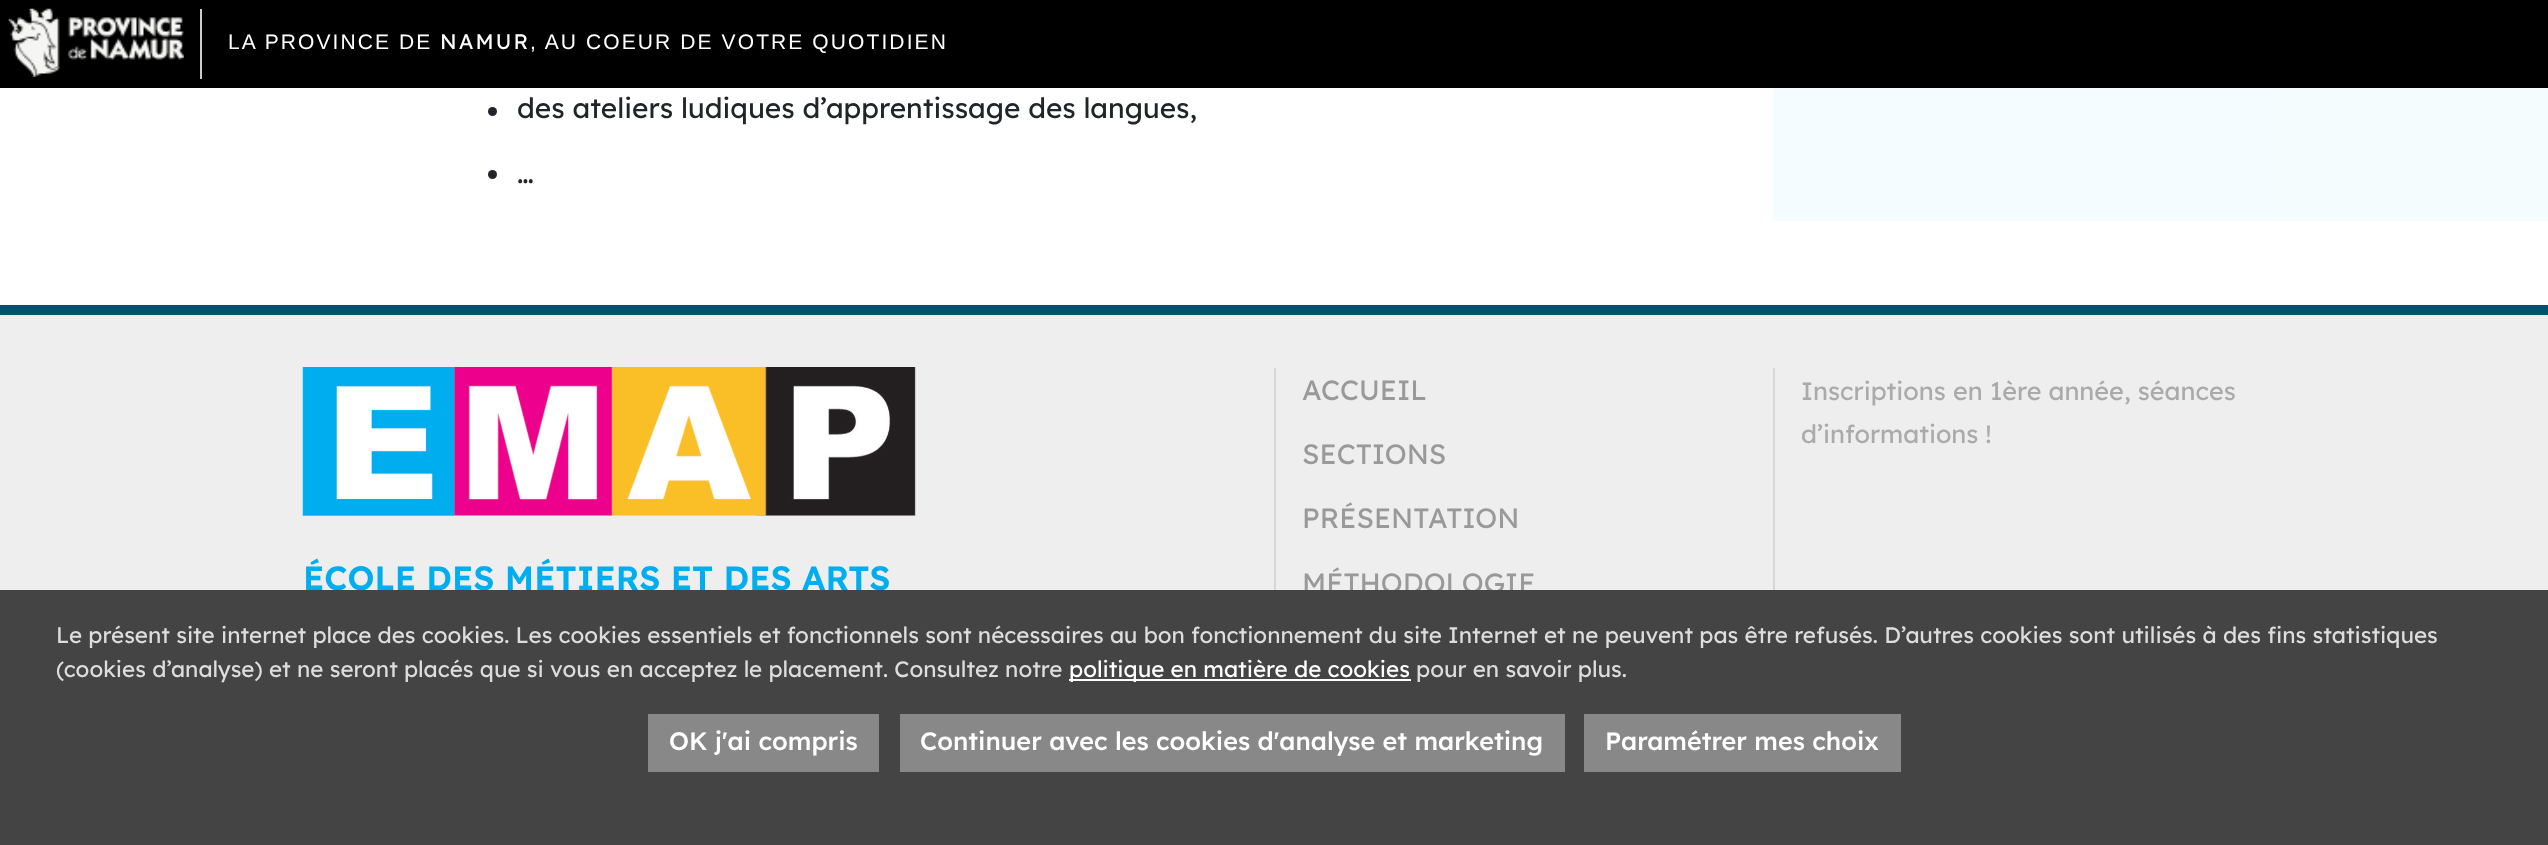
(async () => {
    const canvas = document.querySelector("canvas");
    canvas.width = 2548;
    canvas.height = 845;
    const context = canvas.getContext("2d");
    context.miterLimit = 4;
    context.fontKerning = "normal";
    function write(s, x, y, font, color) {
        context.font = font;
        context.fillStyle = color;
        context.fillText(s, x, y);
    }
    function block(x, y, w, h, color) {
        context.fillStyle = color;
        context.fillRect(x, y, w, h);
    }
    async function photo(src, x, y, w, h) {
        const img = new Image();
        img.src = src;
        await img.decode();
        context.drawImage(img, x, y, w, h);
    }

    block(0, 0, 2548, 845, "rgb(255, 255, 255)");
    block(0, 0, 2548, 88, "rgb(0, 0, 0)");
    block(200, 9, 2, 70, "rgb(204, 204, 204)");
    await photo("media/1.png", 8, 8, 176, 69);
    context.letterSpacing = "2.1px";
    write("LA PROVINCE DE", 228, 49, "21px Liberation Sans", "rgb(255, 255, 255)");
    write("NAMUR", 440, 49, "21px Lexend Deca", "rgb(255, 255, 255)");
    write(", AU COEUR DE VOTRE QUOTIDIEN", 530, 49, "21px Liberation Sans", "rgb(255, 255, 255)");
    context.fillStyle = "rgb(33, 37, 41)";
    context.beginPath();
    context.arc(492.5, 111.5, 4.5, 0, Math.PI * 2);
    context.fill();
    context.letterSpacing = "0px";
    write("des ateliers ludiques d’apprentissage des langues,", 517, 118, "28px Lexend Deca", "rgb(33, 37, 41)");
    context.beginPath();
    context.arc(492.5, 174.5, 4.5, 0, Math.PI * 2);
    context.fill();
    write("…", 517, 183, "28px Lexend Deca", "rgb(33, 37, 41)");
    block(1773, 88, 499, 133, "rgb(245, 252, 255)");
    block(2272, 88, 276, 133, "rgb(245, 252, 254)");
    block(0, 315, 2548, 275, "rgb(238, 238, 238)");
    block(0, 305, 2548, 10, "rgb(0, 82, 112)");
    block(1274, 368, 2, 222, "rgb(214, 214, 214)");
    write("ACCUEIL", 1302, 400, "28px Lexend Deca", "rgb(153, 153, 153)");
    write("SECTIONS", 1302, 464, "28px Lexend Deca", "rgb(153, 153, 153)");
    write("PRÉSENTATION", 1302, 528, "28px Lexend Deca", "rgb(153, 153, 153)");
    write("MÉTHODOLOGIE", 1302, 593, "28px Lexend Deca", "rgb(153, 153, 153)");
    block(1773, 368, 2, 222, "rgb(214, 214, 214)");
    write("Inscriptions en 1ère année, séances", 1801, 400, "25.2px Lexend Deca", "rgb(170, 170, 170)");
    write("d’informations !", 1801, 443, "25.2px Lexend Deca", "rgb(170, 170, 170)");
    await photo("media/2.png", 302, 367, 614, 149);
    write("ÉCOLE DES MÉTIERS ET DES ARTS", 303, 590, "600 33.6px Lexend Deca", "rgb(0, 174, 239)");
    block(0, 590, 2548, 255, "rgb(68, 68, 68)");
    write("Le présent site internet place des cookies. Les cookies essentiels et fonctionnels sont nécessaires au bon fonctionnement du site Internet et ne peuvent pas être refusés. D’autres cookies sont utilisés à des fins statistiques", 56, 643, "22.4px Lexend Deca", "rgb(221, 221, 221)");
    write("(cookies d’analyse) et ne seront placés que si vous en acceptez le placement. Consultez notre", 56, 677, "22.4px Lexend Deca", "rgb(221, 221, 221)");
    block(1069, 679, 342, 2, "rgb(255, 255, 255)");
    write("politique en matière de cookies", 1069, 677, "22.4px Lexend Deca", "rgb(255, 255, 255)");
    write("pour en savoir plus.", 1416, 677, "22.4px Lexend Deca", "rgb(221, 221, 221)");
    block(648, 714, 231, 58, "rgb(136, 136, 136)");
    write("OK j'ai compris", 669, 750, "500 25.2px Lexend Deca", "rgb(255, 255, 255)");
    block(900, 714, 665, 58, "rgb(136, 136, 136)");
    write("Continuer avec les cookies d'analyse et marketing", 920, 750, "500 25.2px Lexend Deca", "rgb(255, 255, 255)");
    block(1584, 714, 317, 58, "rgb(136, 136, 136)");
    write("Paramétrer mes choix", 1605, 750, "500 25.2px Lexend Deca", "rgb(255, 255, 255)");
})();
